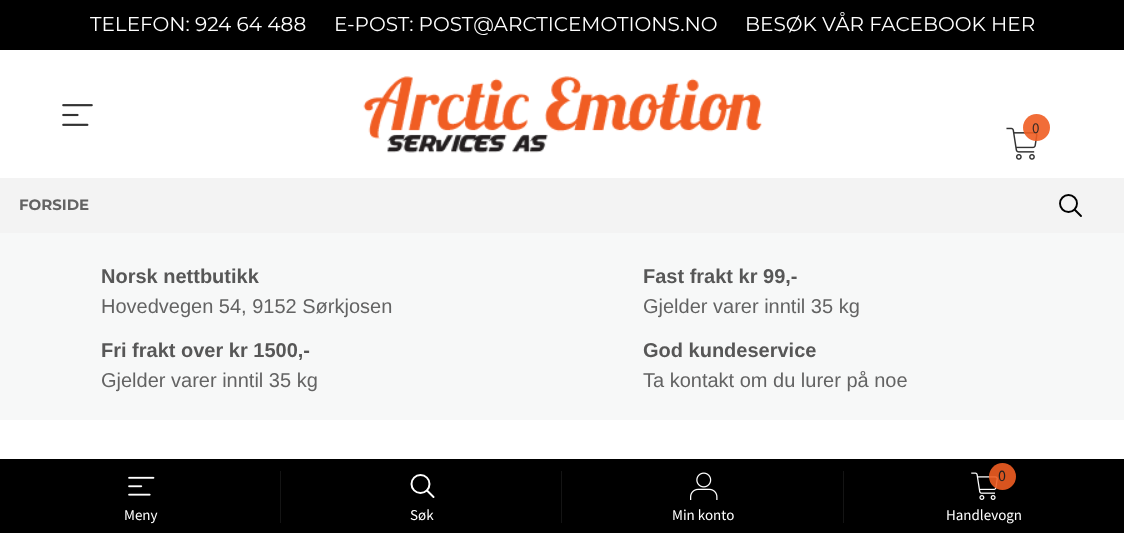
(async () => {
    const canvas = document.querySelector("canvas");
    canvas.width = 1124;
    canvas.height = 533;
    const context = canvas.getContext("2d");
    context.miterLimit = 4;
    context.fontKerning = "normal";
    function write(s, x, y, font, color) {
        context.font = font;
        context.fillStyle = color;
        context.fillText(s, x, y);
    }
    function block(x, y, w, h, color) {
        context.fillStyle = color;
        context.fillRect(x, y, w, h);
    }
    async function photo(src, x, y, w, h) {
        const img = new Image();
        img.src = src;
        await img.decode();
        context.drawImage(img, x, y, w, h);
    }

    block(0, 0, 1124, 533, "rgb(243, 243, 243)");
    block(0, 0, 1124, 50, "rgb(0, 0, 0)");
    write("TELEFON: 924 64 488", 90, 31, "20px Montserrat", "rgb(255, 255, 255)");
    write("E-POST: POST@ARCTICEMOTIONS.NO", 334, 31, "20px Montserrat", "rgb(255, 255, 255)");
    write("BESØK VÅR FACEBOOK HER", 745, 31, "20px Montserrat", "rgb(255, 255, 255)");
    block(0, 50, 1124, 128, "rgb(255, 255, 255)");
    await photo("media/1.png", 62, 104, 31, 22);
    await photo("media/2.png", 363, 76, 399, 77);
    await photo("media/3.png", 1006, 127, 32, 33);
    context.fillStyle = "rgba(239, 93, 34, 0.9)";
    context.beginPath();
    context.arc(1036.5, 127.5, 13.5, 0, Math.PI * 2);
    context.fill();
    write("0", 1032, 133, "15px Source Sans Pro", "rgb(56, 43, 38)");
    write("FORSIDE", 19, 210, "bold 15px Montserrat", "rgb(99, 99, 99)");
    context.beginPath();
    context.arc(1068.5, 203.5, 8.5, 0, Math.PI * 2);
    context.strokeStyle = "rgb(0, 0, 0)";
    context.lineWidth = 1.9;
    context.stroke();
    context.beginPath();
    context.moveTo(1081, 216);
    context.lineTo(1075, 210);
    context.lineCap = "round";
    context.stroke();
    block(0, 233, 1124, 187, "rgb(247, 248, 248)");
    write("Norsk nettbutikk", 101, 283, "bold 20px Liberation Sans", "rgb(87, 87, 87)");
    write("Hovedvegen 54, 9152 Sørkjosen", 101, 313, "20px Liberation Sans", "rgb(99, 99, 99)");
    write("Fast frakt kr 99,-", 643, 283, "bold 20px Liberation Sans", "rgb(87, 87, 87)");
    write("Gjelder varer inntil 35 kg", 643, 313, "20px Liberation Sans", "rgb(99, 99, 99)");
    write("Fri frakt over kr 1500,-", 101, 357, "bold 20px Liberation Sans", "rgb(87, 87, 87)");
    write("Gjelder varer inntil 35 kg", 101, 387, "20px Liberation Sans", "rgb(99, 99, 99)");
    write("God kundeservice", 643, 357, "bold 20px Liberation Sans", "rgb(87, 87, 87)");
    write("Ta kontakt om du lurer på noe", 643, 387, "20px Liberation Sans", "rgb(99, 99, 99)");
    block(0, 420, 1124, 39, "rgb(255, 255, 255)");
    block(0, 459, 1124, 74, "rgb(0, 0, 0)");
    await photo("media/4.png", 128, 476, 27, 20);
    write("Meny", 124, 520, "15px Source Sans Pro", "rgb(255, 255, 255)");
    block(280, 471, 1, 52, "rgb(20, 20, 20)");
    context.beginPath();
    context.arc(420.5, 484, 9, 0, Math.PI * 2);
    context.strokeStyle = "rgb(255, 255, 255)";
    context.lineWidth = 2;
    context.stroke();
    context.beginPath();
    context.moveTo(433.5, 497);
    context.lineTo(427, 490.5);
    context.stroke();
    write("Søk", 410, 520, "15px Source Sans Pro", "rgb(255, 255, 255)");
    block(561, 471, 1, 52, "rgb(20, 20, 20)");
    await photo("media/5.png", 690, 472, 28, 28);
    write("Min konto", 672, 520, "15px Source Sans Pro", "rgb(255, 255, 255)");
    block(843, 471, 1, 52, "rgb(20, 20, 20)");
    await photo("media/6.png", 971, 472, 27, 28);
    context.fillStyle = "rgba(239, 93, 34, 0.9)";
    context.beginPath();
    context.arc(1002.5, 476.5, 13.5, 0, Math.PI * 2);
    context.fill();
    write("0", 998, 481, "16px Source Sans Pro", "rgb(32, 32, 32)");
    write("Handlevogn", 946, 520, "15px Source Sans Pro", "rgb(255, 255, 255)");
})();
